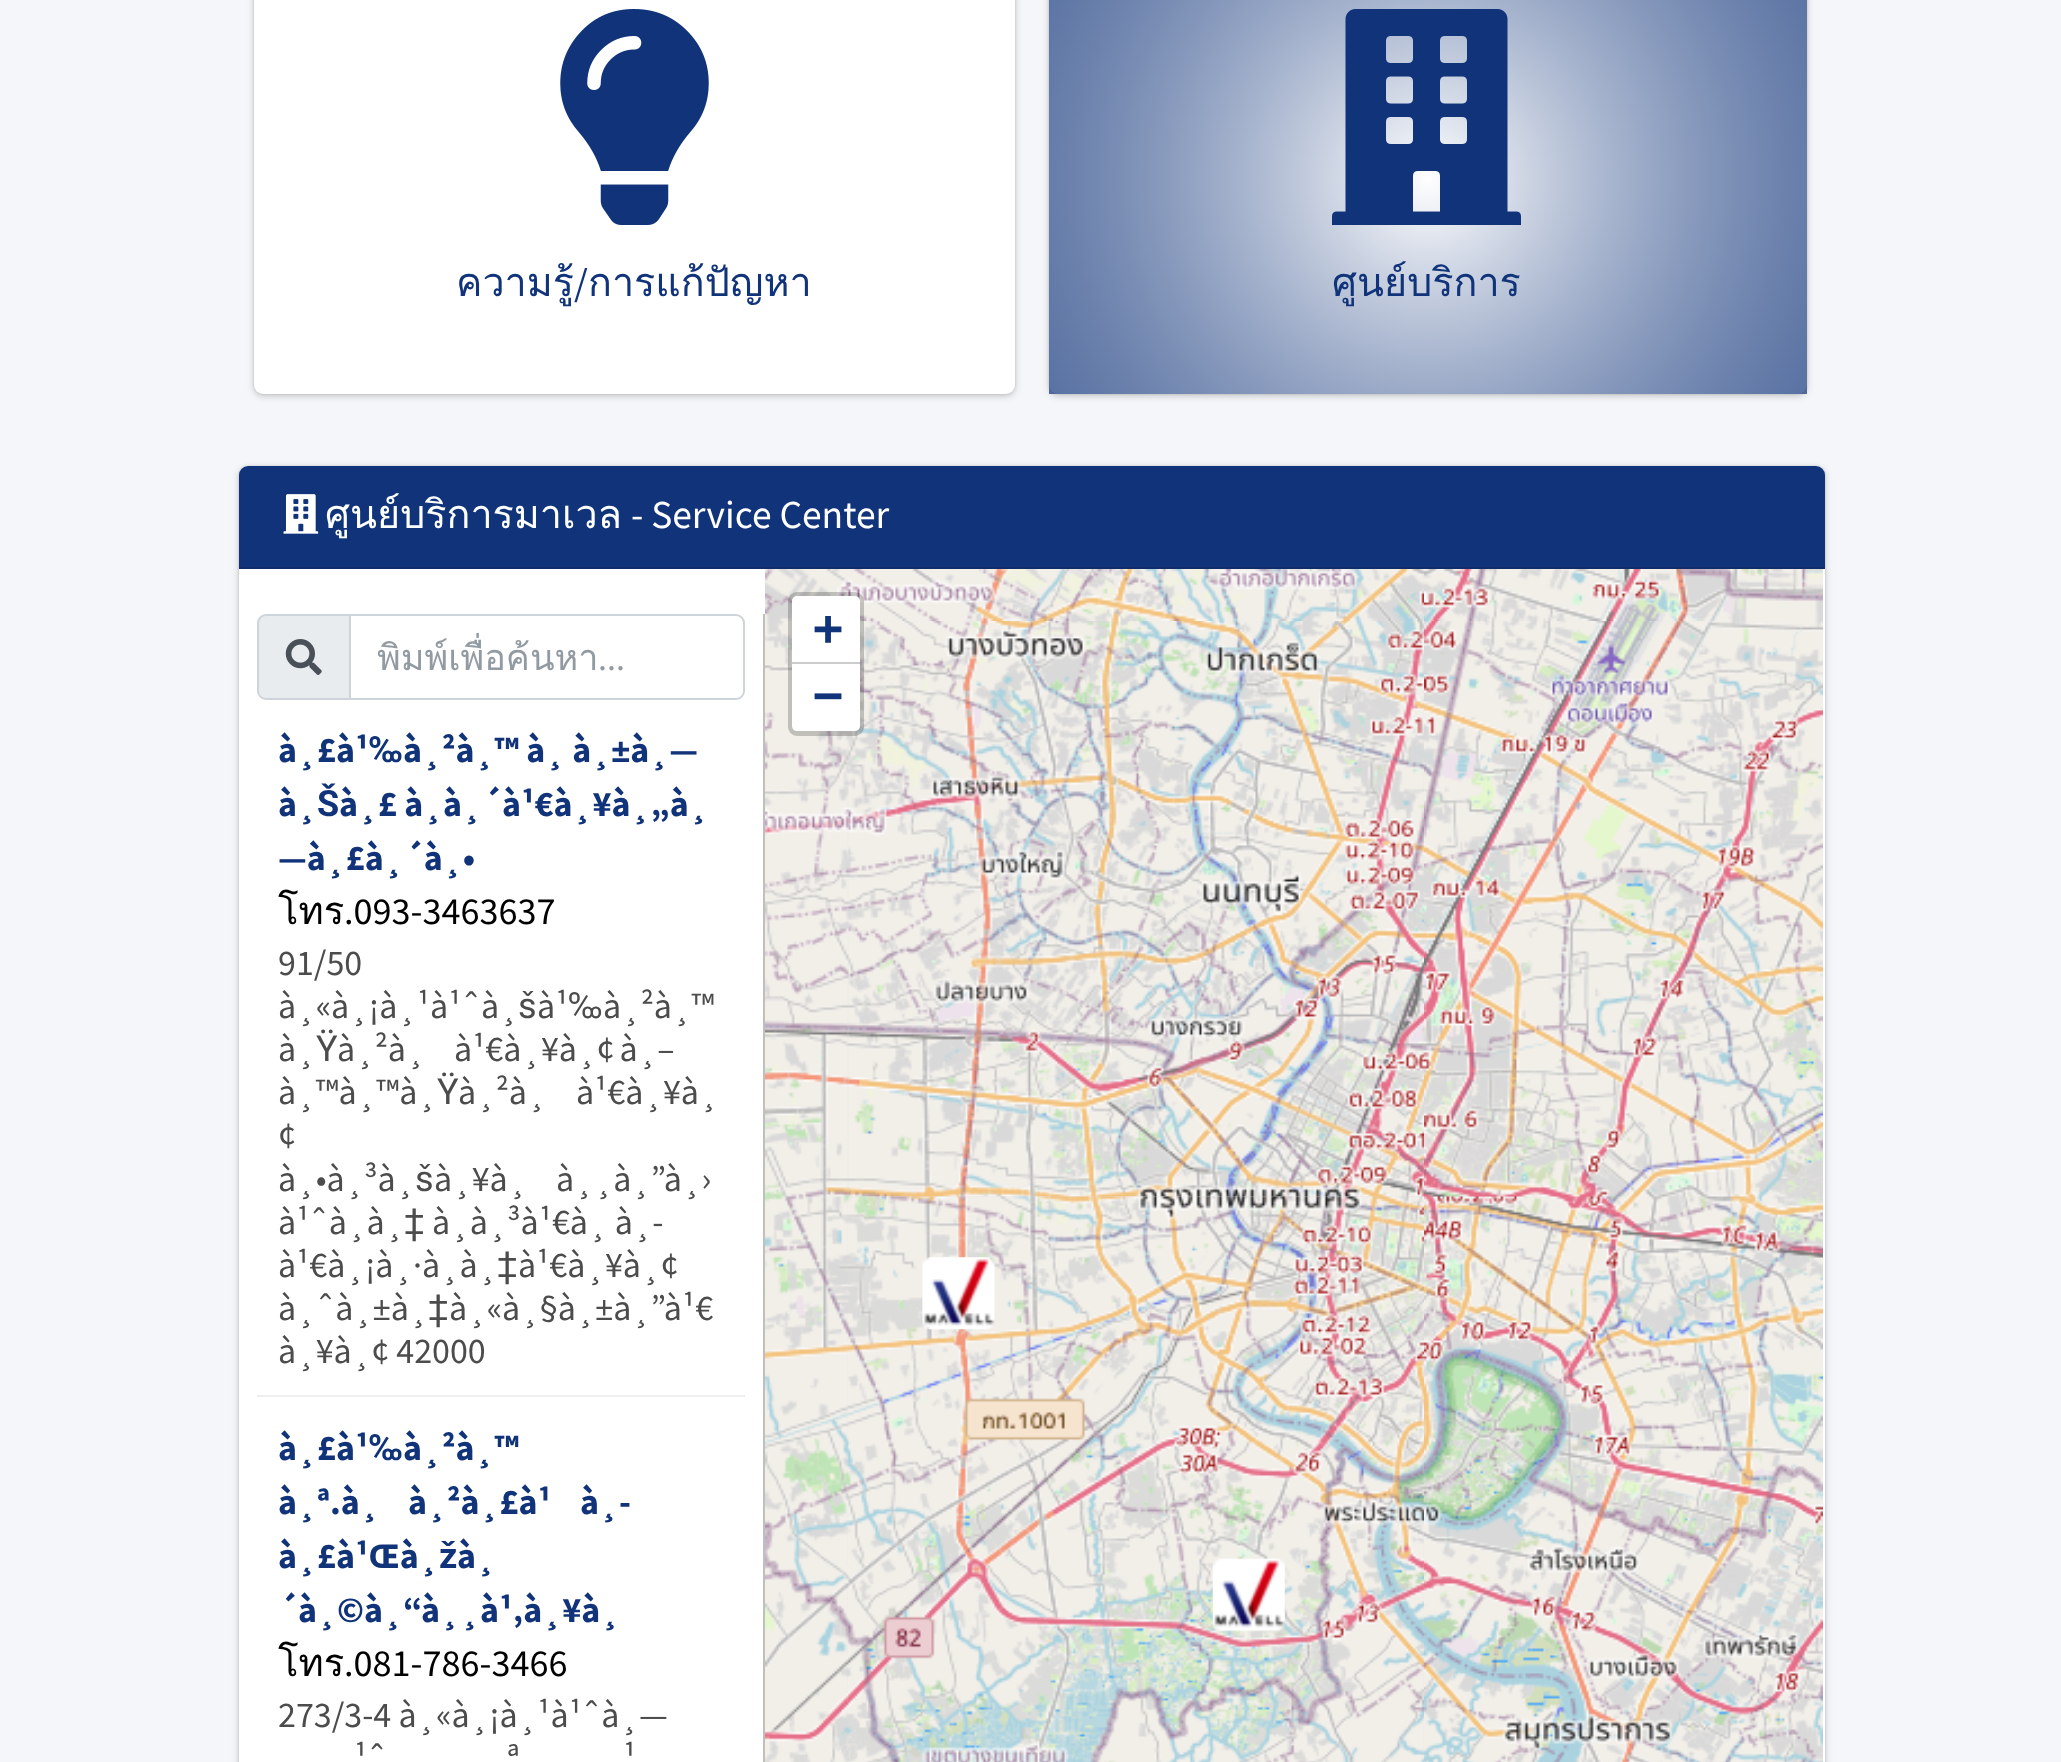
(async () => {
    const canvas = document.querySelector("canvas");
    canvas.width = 2061;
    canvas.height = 1762;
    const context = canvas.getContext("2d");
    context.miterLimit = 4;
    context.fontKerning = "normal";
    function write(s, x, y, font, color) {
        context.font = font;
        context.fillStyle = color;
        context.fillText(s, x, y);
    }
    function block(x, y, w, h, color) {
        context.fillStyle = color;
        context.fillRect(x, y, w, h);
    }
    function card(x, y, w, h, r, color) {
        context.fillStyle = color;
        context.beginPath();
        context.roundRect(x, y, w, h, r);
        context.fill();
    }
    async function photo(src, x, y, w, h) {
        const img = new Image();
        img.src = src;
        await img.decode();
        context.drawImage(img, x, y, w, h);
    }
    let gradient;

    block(0, 0, 2061, 1762, "rgb(244, 246, 249)");
    context.fillStyle = "rgba(0, 0, 0, 0.2)";
    context.filter = "blur(3.5px)";
    context.beginPath();
    context.roundRect(254, -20, 761, 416, 9);
    context.fill();
    context.filter = "none";
    context.fillStyle = "rgba(0, 0, 0, 0.12)";
    context.filter = "blur(1px)";
    context.beginPath();
    context.roundRect(254, -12, 761, 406, 9);
    context.fill();
    context.filter = "none";
    card(254, -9, 761, 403, 9, "rgb(255, 255, 255)");
    await photo("media/1.png", 560, 9, 149, 216);
    write("ความรู้", 456, 296, "39.5px Loma", "rgb(16, 51, 121)");
    write("/", 574, 296, "39.5px Source Sans Pro", "rgb(16, 51, 121)");
    write("การแก้ปัญหา", 588, 296, "39.5px Loma", "rgb(16, 51, 121)");
    context.fillStyle = "rgba(0, 0, 0, 0.2)";
    context.filter = "blur(3.5px)";
    context.beginPath();
    context.roundRect(1049, -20, 758, 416, 9);
    context.fill();
    context.filter = "none";
    context.fillStyle = "rgba(0, 0, 0, 0.12)";
    context.filter = "blur(1px)";
    context.beginPath();
    context.roundRect(1049, -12, 758, 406, 9);
    context.fill();
    context.filter = "none";
    card(1049, -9, 758, 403, 9, "rgb(255, 255, 255)");
    gradient = context.createRadialGradient(1428, 179, 0, 1428, 179, 436);
    gradient.addColorStop(0, "rgb(255, 255, 255)");
    gradient.addColorStop(1, "rgba(15, 51, 121, 0.69)");
    context.fillStyle = gradient;
    context.fillRect(1049, 0, 758, 394);
    await photo("media/2.png", 1332, 9, 189, 216);
    write("ศูนย์บริการ", 1332, 296, "39.5px Loma", "rgb(16, 51, 121)");
    context.fillStyle = "rgba(0, 0, 0, 0.2)";
    context.filter = "blur(3.5px)";
    context.beginPath();
    context.roundRect(239, 468, 1586, 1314, 9);
    context.fill();
    context.filter = "none";
    context.fillStyle = "rgba(0, 0, 0, 0.12)";
    context.filter = "blur(1px)";
    context.beginPath();
    context.roundRect(239, 466, 1586, 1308, 9);
    context.fill();
    context.filter = "none";
    card(239, 466, 1586, 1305, 9, "rgb(255, 255, 255)");
    context.fillStyle = "rgb(16, 51, 121)";
    context.beginPath();
    context.roundRect(239, 466, 1586, 103, [9, 9, 0, 0]);
    context.fill();
    block(239, 567, 1586, 2, "rgb(14, 45, 106)");
    await photo("media/3.png", 283, 494, 36, 40);
    write("ศูนย์บริการมาเวล", 325, 528, "39.5px Loma", "rgb(255, 255, 255)");
    write("- Service Center", 631, 528, "39.5px Source Sans Pro", "rgb(255, 255, 255)");
    block(763, 614, 2, 1148, "rgb(191, 191, 191)");
    context.fillStyle = "rgb(233, 236, 239)";
    context.beginPath();
    context.roundRect(258, 615, 92, 84, [8, 0, 0, 8]);
    context.fill();
    context.strokeStyle = "rgb(206, 212, 218)";
    context.lineWidth = 2;
    context.stroke();
    await photo("media/4.png", 285, 639, 37, 36);
    context.beginPath();
    context.roundRect(350, 615, 394, 84, [0, 8, 8, 0]);
    context.stroke();
    context.save();
    context.beginPath();
    context.rect(378, 630, 338, 56);
    context.clip();
    write("พิมพ์เพื่อค้นหา", 377, 670, "36px Loma", "rgb(147, 155, 162)");
    context.restore();
    write("...", 598, 670, "36px Source Sans Pro", "rgb(147, 155, 162)");
    block(257, 1395, 488, 2, "rgb(238, 238, 238)");
    write("à¸£à¹", 278, 762, "bold 36px Source Sans Pro", "rgb(16, 51, 121)");
    write("‰", 368, 762, "bold 36px Roboto", "rgb(16, 51, 121)");
    write("à¸²à¸™ à¸ à¸±à¸—", 403, 762, "bold 36px Source Sans Pro", "rgb(16, 51, 121)");
    write("à¸", 278, 816, "bold 36px Source Sans Pro", "rgb(16, 51, 121)");
    write("Š", 317, 816, "bold 36px Roboto", "rgb(16, 51, 121)");
    write("à¸£ à¸à¸´à¹€à¸¥à¸„à¸", 339, 816, "bold 36px Source Sans Pro", "rgb(16, 51, 121)");
    write("—à¸£à¸´à¸•", 278, 870, "bold 36px Source Sans Pro", "rgb(16, 51, 121)");
    write("โทร", 278, 924, "38.25px Loma", "rgb(0, 0, 0)");
    write(".093-3463637", 344, 924, "38.25px Source Sans Pro", "rgb(0, 0, 0)");
    write("91/50", 278, 975, "36px Source Sans Pro", "rgb(76, 76, 76)");
    write("à¸«à¸¡à¸¹à¹ˆà¸", 278, 1018, "36px Source Sans Pro", "rgb(76, 76, 76)");
    write("š", 518, 1018, "36px Roboto", "rgb(76, 76, 76)");
    write("à¹", 537, 1018, "36px Source Sans Pro", "rgb(76, 76, 76)");
    write("‰", 568, 1018, "36px Roboto", "rgb(76, 76, 76)");
    write("à¸²à¸™", 603, 1018, "36px Source Sans Pro", "rgb(76, 76, 76)");
    write("à¸", 278, 1061, "36px Source Sans Pro", "rgb(76, 76, 76)");
    write("Ÿ", 316, 1061, "36px Roboto", "rgb(76, 76, 76)");
    write("à¸²à¸", 337, 1061, "36px Source Sans Pro", "rgb(76, 76, 76)");
    context.wordSpacing = "-2px";
    write("à¹€à¸¥à¸¢ à¸–", 454, 1061, "36px Source Sans Pro", "rgb(76, 76, 76)");
    context.wordSpacing = "0px";
    write("à¸™à¸™à¸", 278, 1104, "36px Source Sans Pro", "rgb(76, 76, 76)");
    write("Ÿ", 437, 1104, "36px Roboto", "rgb(76, 76, 76)");
    write("à¸²à¸", 458, 1104, "36px Source Sans Pro", "rgb(76, 76, 76)");
    write("à¹€à¸¥à¸", 576, 1104, "36px Source Sans Pro", "rgb(76, 76, 76)");
    write("¢", 278, 1147, "36px Source Sans Pro", "rgb(76, 76, 76)");
    write("à¸•à¸³à¸", 278, 1191, "36px Source Sans Pro", "rgb(76, 76, 76)");
    write("š", 415, 1191, "36px Roboto", "rgb(76, 76, 76)");
    write("à¸¥à¸", 434, 1191, "36px Source Sans Pro", "rgb(76, 76, 76)");
    write("à¸¸à¸”à¸›", 556, 1191, "36px Source Sans Pro", "rgb(76, 76, 76)");
    write("à¹ˆà¸à¸", 278, 1234, "36px Source Sans Pro", "rgb(76, 76, 76)");
    write("‡", 404, 1234, "36px Roboto", "rgb(76, 76, 76)");
    write("à¸à¸³à¹€à¸ à¸-", 432, 1234, "36px Source Sans Pro", "rgb(76, 76, 76)");
    write("à¹€à¸¡à¸·à¸à¸", 278, 1277, "36px Source Sans Pro", "rgb(76, 76, 76)");
    write("‡", 497, 1277, "36px Roboto", "rgb(76, 76, 76)");
    write("à¹€à¸¥à¸¢", 518, 1277, "36px Source Sans Pro", "rgb(76, 76, 76)");
    write("à¸ˆà¸±à¸", 278, 1320, "36px Source Sans Pro", "rgb(76, 76, 76)");
    write("‡", 428, 1320, "36px Roboto", "rgb(76, 76, 76)");
    write("à¸«à¸§à¸±à¸”à¹€", 449, 1320, "36px Source Sans Pro", "rgb(76, 76, 76)");
    write("à¸¥à¸¢ 42000", 278, 1363, "36px Source Sans Pro", "rgb(76, 76, 76)");
    write("à¸£à¹", 278, 1460, "bold 36px Source Sans Pro", "rgb(16, 51, 121)");
    write("‰", 368, 1460, "bold 36px Roboto", "rgb(16, 51, 121)");
    write("à¸²à¸™", 403, 1460, "bold 36px Source Sans Pro", "rgb(16, 51, 121)");
    write("à¸ª.à¸", 278, 1514, "bold 36px Source Sans Pro", "rgb(16, 51, 121)");
    write("à¸²à¸£à¹", 408, 1514, "bold 36px Source Sans Pro", "rgb(16, 51, 121)");
    write("à¸-", 580, 1514, "bold 36px Source Sans Pro", "rgb(16, 51, 121)");
    write("à¸£à¹Œà¸", 278, 1568, "bold 36px Source Sans Pro", "rgb(16, 51, 121)");
    write("ž", 439, 1568, "bold 36px Roboto", "rgb(16, 51, 121)");
    write("à¸", 457, 1568, "bold 36px Source Sans Pro", "rgb(16, 51, 121)");
    write("´à¸©à¸“à¸¸à¹‚à¸¥à¸", 278, 1622, "bold 36px Source Sans Pro", "rgb(16, 51, 121)");
    write("โทร", 278, 1676, "38.25px Loma", "rgb(0, 0, 0)");
    write(".081-786-3466", 344, 1676, "38.25px Source Sans Pro", "rgb(0, 0, 0)");
    write("273/3-4 à¸«à¸¡à¸¹à¹ˆà¸—", 278, 1727, "36px Source Sans Pro", "rgb(76, 76, 76)");
    write("¹ˆ", 354, 1770, "36px Source Sans Pro", "rgb(76, 76, 76)");
    write("ª", 507, 1770, "36px Source Sans Pro", "rgb(76, 76, 76)");
    write("¹", 623, 1770, "36px Source Sans Pro", "rgb(76, 76, 76)");
    block(765, 569, 1058, 1193, "rgb(221, 221, 221)");
    await photo("media/9.png", 848, 620, 577, 577);
    await photo("media/6.png", 848, 569, 576, 52);
    await photo("media/5.png", 765, 569, 84, 52);
    await photo("media/7.png", 1424, 569, 399, 52);
    await photo("media/10.png", 1424, 621, 399, 576);
    await photo("media/12.png", 848, 1196, 577, 566);
    await photo("media/8.png", 765, 621, 84, 576);
    await photo("media/11.png", 765, 1196, 84, 566);
    await photo("media/13.png", 1424, 1196, 399, 566);
    await photo("media/14.png", 922, 1257, 73, 73);
    await photo("media/15.png", 1212, 1558, 73, 74);
    context.beginPath();
    context.roundRect(790.5, 594.5, 71, 139, 6.5);
    context.strokeStyle = "rgba(0, 0, 0, 0.2)";
    context.lineWidth = 5;
    context.stroke();
    context.fillStyle = "rgb(255, 255, 255)";
    context.beginPath();
    context.roundRect(792, 596, 68, 68, [5, 5, 0, 0]);
    context.fill();
    block(792, 662, 68, 2, "rgb(204, 204, 204)");
    write("+", 813, 645, "bold 50px DejaVu Sans Mono", "rgb(16, 51, 121)");
    context.fillStyle = "rgb(255, 255, 255)";
    context.beginPath();
    context.roundRect(792, 664, 68, 67, [0, 0, 5, 5]);
    context.fill();
    write("−", 813, 712, "bold 50px DejaVu Sans Mono", "rgb(16, 51, 121)");
})();
